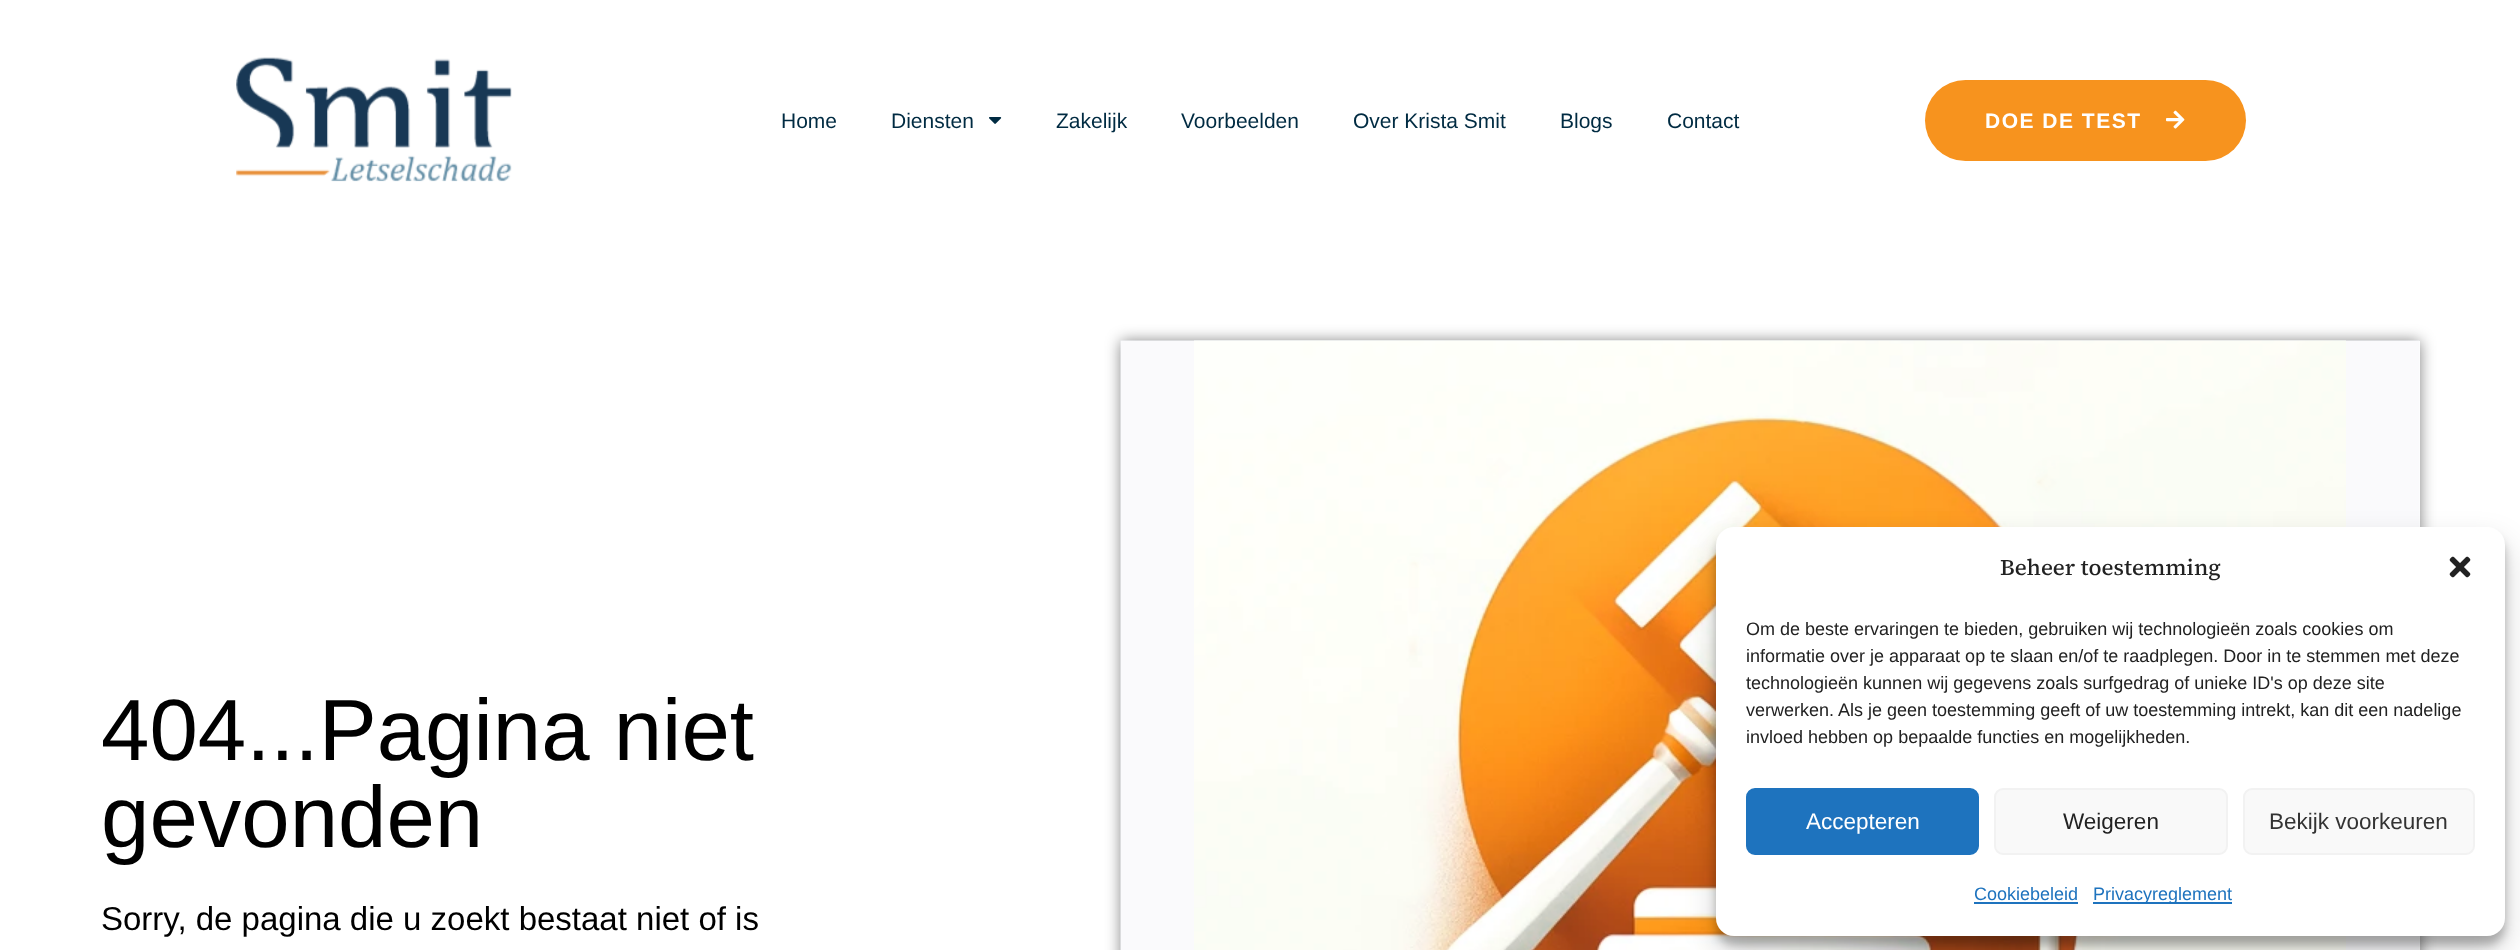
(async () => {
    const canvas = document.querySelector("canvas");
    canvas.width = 2520;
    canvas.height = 950;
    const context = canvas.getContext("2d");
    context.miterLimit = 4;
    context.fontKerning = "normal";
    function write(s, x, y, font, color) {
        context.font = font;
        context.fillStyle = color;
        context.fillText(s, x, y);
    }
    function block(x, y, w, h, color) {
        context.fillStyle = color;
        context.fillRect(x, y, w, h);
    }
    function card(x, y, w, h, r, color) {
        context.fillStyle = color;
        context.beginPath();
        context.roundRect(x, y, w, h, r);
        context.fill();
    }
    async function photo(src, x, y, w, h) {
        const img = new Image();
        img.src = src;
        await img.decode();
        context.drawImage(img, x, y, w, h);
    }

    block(0, 0, 2520, 950, "rgb(255, 255, 255)");
    await photo("media/1.png", 236, 57, 276, 125);
    write("Home", 781, 128, "21px Liberation Sans", "rgb(0, 43, 66)");
    write("Diensten", 891, 128, "21px Liberation Sans", "rgb(0, 43, 66)");
    await photo("media/2.png", 989, 117, 13, 7);
    write("Zakelijk", 1056, 128, "21px Liberation Sans", "rgb(0, 43, 66)");
    write("Voorbeelden", 1181, 128, "21px Liberation Sans", "rgb(0, 43, 66)");
    write("Over Krista Smit", 1353, 128, "21px Liberation Sans", "rgb(0, 43, 66)");
    write("Blogs", 1560, 128, "21px Liberation Sans", "rgb(0, 43, 66)");
    write("Contact", 1667, 128, "21px Liberation Sans", "rgb(0, 43, 66)");
    card(1925, 80, 321, 81, 40.5, "rgb(247, 147, 30)");
    context.letterSpacing = "1.5px";
    write("DOE DE TEST", 1985, 128, "bold 21px Liberation Sans", "rgb(255, 255, 255)");
    await photo("media/3.png", 2166, 110, 19, 19);
    context.letterSpacing = "0px";
    write("404...Pagina niet", 101, 760, "87px Liberation Sans", "rgb(0, 0, 0)");
    write("gevonden", 101, 847, "87px Liberation Sans", "rgb(0, 0, 0)");
    write("Sorry, de pagina die u zoekt bestaat niet of is", 101, 930, "33px Liberation Sans", "rgb(0, 0, 0)");
    context.fillStyle = "rgba(0, 0, 0, 0.5)";
    context.filter = "blur(7.5px)";
    context.beginPath();
    context.rect(1121, 341, 1299, 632);
    context.fill();
    context.filter = "none";
    block(2419, 341, 1, 609, "rgb(255, 255, 255)");
    await photo("media/4.png", 1120, 340, 1300, 610);
    block(1121, 341, 1299, 609, "rgba(255, 255, 255, 0.5)");
    await photo("media/5.png", 1194, 340, 1152, 610);
    context.fillStyle = "rgba(0, 0, 0, 0.23)";
    context.filter = "blur(4.5px)";
    context.beginPath();
    context.roundRect(1716, 536, 789, 409, 18);
    context.fill();
    context.filter = "none";
    context.fillStyle = "rgba(0, 0, 0, 0.19)";
    context.filter = "blur(15px)";
    context.beginPath();
    context.roundRect(1716, 542, 789, 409, 18);
    context.fill();
    context.filter = "none";
    card(1716, 527, 789, 409, 18, "rgb(255, 255, 255)");
    write("Beheer toestemming", 2000, 575, "500 22.5px 'Source Serif 4'", "rgb(34, 34, 34)");
    await photo("media/6.png", 2449, 556, 22, 22);
    write("Om de beste ervaringen te bieden, gebruiken wij technologieën zoals cookies om", 1746, 635, "18px Liberation Sans", "rgb(34, 34, 34)");
    write("informatie over je apparaat op te slaan en/of te raadplegen. Door in te stemmen met deze", 1746, 662, "18px Liberation Sans", "rgb(34, 34, 34)");
    write("technologieën kunnen wij gegevens zoals surfgedrag of unieke ID's op deze site", 1746, 689, "18px Liberation Sans", "rgb(34, 34, 34)");
    write("verwerken. Als je geen toestemming geeft of uw toestemming intrekt, kan dit een nadelige", 1746, 716, "18px Liberation Sans", "rgb(34, 34, 34)");
    write("invloed hebben op bepaalde functies en mogelijkheden.", 1746, 743, "18px Liberation Sans", "rgb(34, 34, 34)");
    context.fillStyle = "rgb(30, 115, 190)";
    context.beginPath();
    context.roundRect(1747, 789, 231, 65, 8);
    context.fill();
    context.strokeStyle = "rgb(30, 115, 190)";
    context.lineWidth = 2;
    context.stroke();
    write("Accepteren", 1806, 829, "22.5px Liberation Sans", "rgb(255, 255, 255)");
    context.fillStyle = "rgb(249, 249, 249)";
    context.beginPath();
    context.roundRect(1995, 789, 232, 65, 8);
    context.fill();
    context.strokeStyle = "rgb(242, 242, 242)";
    context.stroke();
    write("Weigeren", 2063, 829, "22.5px Liberation Sans", "rgb(34, 34, 34)");
    context.fillStyle = "rgb(249, 249, 249)";
    context.beginPath();
    context.roundRect(2244, 789, 230, 65, 8);
    context.fill();
    context.stroke();
    write("Bekijk voorkeuren", 2269, 829, "22.5px Liberation Sans", "rgb(51, 51, 51)");
    write("Cookiebeleid", 1974, 900, "18px Liberation Sans", "rgb(30, 115, 190)");
    block(1974, 902, 104, 2, "rgb(30, 115, 190)");
    block(2093, 902, 139, 2, "rgb(30, 115, 190)");
    write("Privacyreglement", 2093, 900, "18px Liberation Sans", "rgb(30, 115, 190)");
})();
